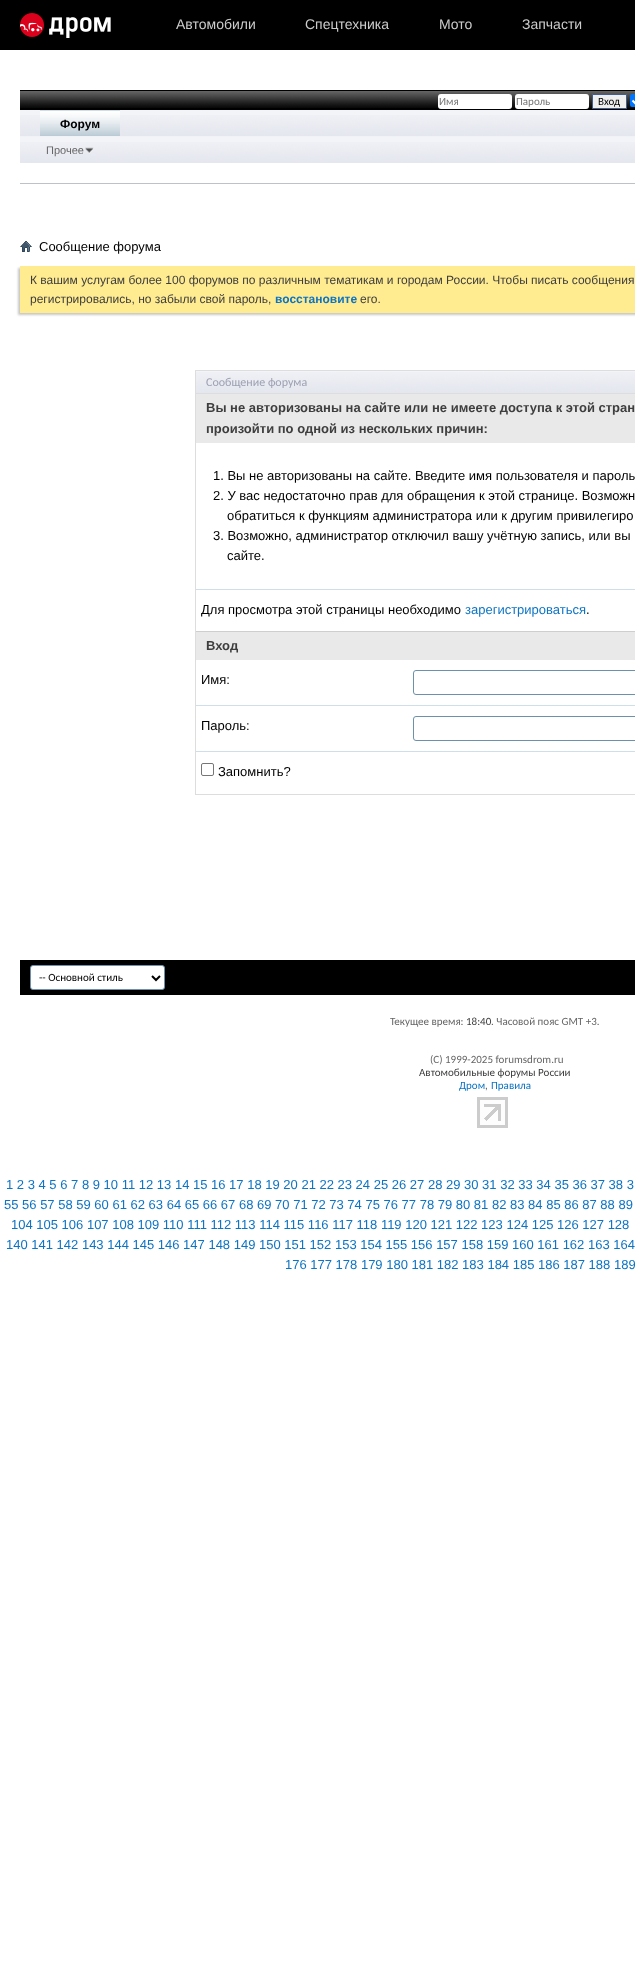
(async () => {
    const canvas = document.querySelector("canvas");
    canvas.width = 635;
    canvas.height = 1980;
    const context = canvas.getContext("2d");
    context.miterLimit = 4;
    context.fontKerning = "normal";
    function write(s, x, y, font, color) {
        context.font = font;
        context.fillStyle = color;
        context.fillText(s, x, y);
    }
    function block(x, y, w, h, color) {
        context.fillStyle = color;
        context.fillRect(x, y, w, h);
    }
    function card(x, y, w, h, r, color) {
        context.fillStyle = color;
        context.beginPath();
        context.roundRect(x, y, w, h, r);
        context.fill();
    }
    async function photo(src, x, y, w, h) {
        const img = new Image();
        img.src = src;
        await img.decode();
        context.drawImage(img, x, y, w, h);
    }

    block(0, 0, 635, 1980, "rgb(255, 255, 255)");
    block(0, 0, 635, 50, "rgb(0, 0, 0)");
    await photo("media/1.png", 20, 13, 91, 25);
    write("Автомобили", 176, 29, "14px Liberation Sans", "rgb(204, 204, 204)");
    write("Спецтехника", 305, 29, "14px Liberation Sans", "rgb(204, 204, 204)");
    write("Мото", 439, 29, "14px Liberation Sans", "rgb(204, 204, 204)");
    write("Запчасти", 522, 29, "14px Liberation Sans", "rgb(204, 204, 204)");
    await photo("media/2.png", 20, 90, 615, 20);
    card(438, 94, 74, 15, 3, "rgb(255, 255, 255)");
    write("Имя", 439, 105, "11px Carlito", "rgb(119, 119, 119)");
    card(515, 94, 74, 15, 3, "rgb(255, 255, 255)");
    write("Пароль", 516, 105, "11px Carlito", "rgb(119, 119, 119)");
    context.fillStyle = "rgb(239, 239, 239)";
    context.beginPath();
    context.rect(592.5, 94.5, 34, 14);
    context.fill();
    context.strokeStyle = "rgb(65, 93, 141)";
    context.stroke();
    write("Вход", 598, 105, "11px Carlito", "rgb(0, 0, 0)");
    card(630, 94, 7, 13, 2, "rgb(0, 117, 255)");
    context.beginPath();
    context.moveTo(632.5, 100.5);
    context.lineTo(635, 103);
    context.lineTo(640.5, 96.5);
    context.strokeStyle = "rgb(255, 255, 255)";
    context.lineWidth = 2.1;
    context.stroke();
    block(20, 110, 615, 5, "rgb(243, 244, 248)");
    await photo("media/3.png", 20, 115, 615, 21);
    block(40, 112, 80, 24, "rgb(113, 146, 168)");
    await photo("media/4.png", 40, 111, 80, 25);
    block(40, 110, 80, 1, "rgb(206, 223, 235)");
    write("Форум", 60, 128, "bold 12px Liberation Sans", "rgb(0, 0, 0)");
    block(20, 137, 615, 5, "rgb(243, 244, 248)");
    await photo("media/3.png", 20, 142, 615, 21);
    block(20, 136, 615, 1, "rgb(241, 242, 246)");
    write("Прочее", 46, 154, "11px Liberation Sans", "rgb(102, 102, 102)");
    await photo("media/5.png", 85, 147, 9, 7);
    block(20, 183, 615, 1, "rgb(189, 194, 199)");
    await photo("media/6.png", 20, 241, 12, 11);
    write("Сообщение форума", 39, 251, "13px Liberation Sans", "rgb(0, 0, 0)");
    context.fillStyle = "rgb(200, 200, 200)";
    context.filter = "blur(1px)";
    context.beginPath();
    context.rect(18, 268, 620, 47);
    context.fill();
    context.filter = "none";
    block(20, 266, 615, 47, "rgb(255, 235, 144)");
    write("К вашим услугам более 100 форумов по различным тематикам и городам России. Чтобы писать сообщения", 30, 284, "12px Liberation Sans", "rgb(62, 62, 62)");
    write("регистрировались, но забыли свой пароль,", 30, 303, "12px Liberation Sans", "rgb(62, 62, 62)");
    write("восстановите", 275, 303, "bold 12px Liberation Sans", "rgb(13, 116, 196)");
    write("его.", 360, 303, "12px Liberation Sans", "rgb(62, 62, 62)");
    block(196, 371, 439, 1, "rgb(243, 244, 248)");
    await photo("media/7.png", 196, 372, 439, 21);
    context.strokeStyle = "rgb(221, 221, 221)";
    context.lineWidth = 1;
    context.strokeRect(195.5, 370.5, 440, 23);
    write("Сообщение форума", 206, 386, "12px Carlito", "rgb(158, 161, 178)");
    block(195, 794, 440, 1, "rgb(221, 221, 221)");
    block(195, 394, 1, 401, "rgb(221, 221, 221)");
    block(196, 394, 439, 49, "rgb(233, 233, 233)");
    write("Вы не авторизованы на сайте или не имеете доступа к этой стран", 206, 412, "bold 13px Liberation Sans", "rgb(62, 62, 62)");
    write("произойти по одной из нескольких причин:", 206, 433, "bold 13px Liberation Sans", "rgb(62, 62, 62)");
    write("1. Вы не авторизованы на сайте. Введите имя пользователя и пароль", 213, 480, "13px Liberation Sans", "rgb(0, 0, 0)");
    write("2. У вас недостаточно прав для обращения к этой странице. Возможн", 213, 500, "13px Liberation Sans", "rgb(0, 0, 0)");
    write("обратиться к функциям администратора или к другим привилегиро", 227, 520, "13px Liberation Sans", "rgb(0, 0, 0)");
    write("3. Возможно, администратор отключил вашу учётную запись, или вы", 213, 540, "13px Liberation Sans", "rgb(0, 0, 0)");
    write("сайте.", 227, 560, "13px Liberation Sans", "rgb(0, 0, 0)");
    block(196, 589, 439, 1, "rgb(206, 223, 235)");
    write("Для просмотра этой страницы необходимо", 201, 614, "13px Liberation Sans", "rgb(0, 0, 0)");
    write("зарегистрироваться", 465, 614, "13px Liberation Sans", "rgb(13, 116, 196)");
    write(".", 586, 614, "13px Liberation Sans", "rgb(0, 0, 0)");
    block(196, 632, 439, 28, "rgb(233, 233, 233)");
    block(196, 631, 439, 1, "rgb(206, 206, 206)");
    write("Вход", 206, 650, "bold 13px Liberation Sans", "rgb(62, 62, 62)");
    write("Имя:", 201, 684, "13px Liberation Sans", "rgb(0, 0, 0)");
    context.beginPath();
    context.roundRect(413.5, 670.5, 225, 24, 2.5);
    context.strokeStyle = "rgb(107, 145, 171)";
    context.stroke();
    block(196, 705, 439, 1, "rgb(206, 223, 235)");
    write("Пароль:", 201, 730, "13px Liberation Sans", "rgb(0, 0, 0)");
    context.beginPath();
    context.roundRect(413.5, 716.5, 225, 24, 2.5);
    context.stroke();
    block(196, 751, 439, 1, "rgb(206, 223, 235)");
    context.beginPath();
    context.roundRect(201.5, 763.5, 12, 12, 1.5);
    context.strokeStyle = "rgb(118, 118, 118)";
    context.stroke();
    write("Запомнить?", 218, 776, "13px Liberation Sans", "rgb(0, 0, 0)");
    block(20, 960, 615, 35, "rgb(0, 0, 0)");
    context.fillStyle = "rgb(255, 255, 255)";
    context.beginPath();
    context.roundRect(30.5, 965.5, 134, 24, 2.5);
    context.fill();
    context.strokeStyle = "rgb(107, 145, 171)";
    context.stroke();
    context.beginPath();
    context.moveTo(152, 976);
    context.lineTo(156, 980);
    context.lineTo(160, 976);
    context.strokeStyle = "rgb(0, 0, 0)";
    context.lineWidth = 2;
    context.stroke();
    write("-- Основной стиль", 39, 981, "11px Carlito", "rgb(0, 0, 0)");
    write("Текущее время:", 390, 1025, "11px Carlito", "rgb(102, 102, 102)");
    write("18:40", 466, 1025, "11px Carlito", "rgb(62, 62, 62)");
    write(". Часовой пояс GMT +3.", 491, 1025, "11px Carlito", "rgb(102, 102, 102)");
    write("(C) 1999-2025 forumsdrom.ru", 430, 1063, "11px Carlito", "rgb(102, 102, 102)");
    write("Автомобильные форумы России", 419, 1076, "11px Carlito", "rgb(62, 62, 62)");
    write("Дром", 459, 1089, "11px Carlito", "rgb(13, 116, 196)");
    write(",", 485, 1089, "11px Carlito", "rgb(102, 102, 102)");
    write("Правила", 491, 1089, "11px Carlito", "rgb(13, 116, 196)");
    await photo("media/8.png", 477, 1097, 31, 31);
    write("1 2 3 4 5 6 7 8 9 10 11 12 13 14 15 16 17 18 19 20 21 22 23 24 25 26 27 28 29 30 31 32 33 34 35 36 37 38 3", 6, 1189, "13px Liberation Sans", "rgb(13, 116, 196)");
    write("55 56 57 58 59 60 61 62 63 64 65 66 67 68 69 70 71 72 73 74 75 76 77 78 79 80 81 82 83 84 85 86 87 88 89", 4, 1209, "13px Liberation Sans", "rgb(13, 116, 196)");
    write("104 105 106 107 108 109 110 111 112 113 114 115 116 117 118 119 120 121 122 123 124 125 126 127 128", 11, 1229, "13px Liberation Sans", "rgb(13, 116, 196)");
    write("140 141 142 143 144 145 146 147 148 149 150 151 152 153 154 155 156 157 158 159 160 161 162 163 164", 6, 1249, "13px Liberation Sans", "rgb(13, 116, 196)");
    write("176 177 178 179 180 181 182 183 184 185 186 187 188 189", 285, 1269, "13px Liberation Sans", "rgb(13, 116, 196)");
})();
